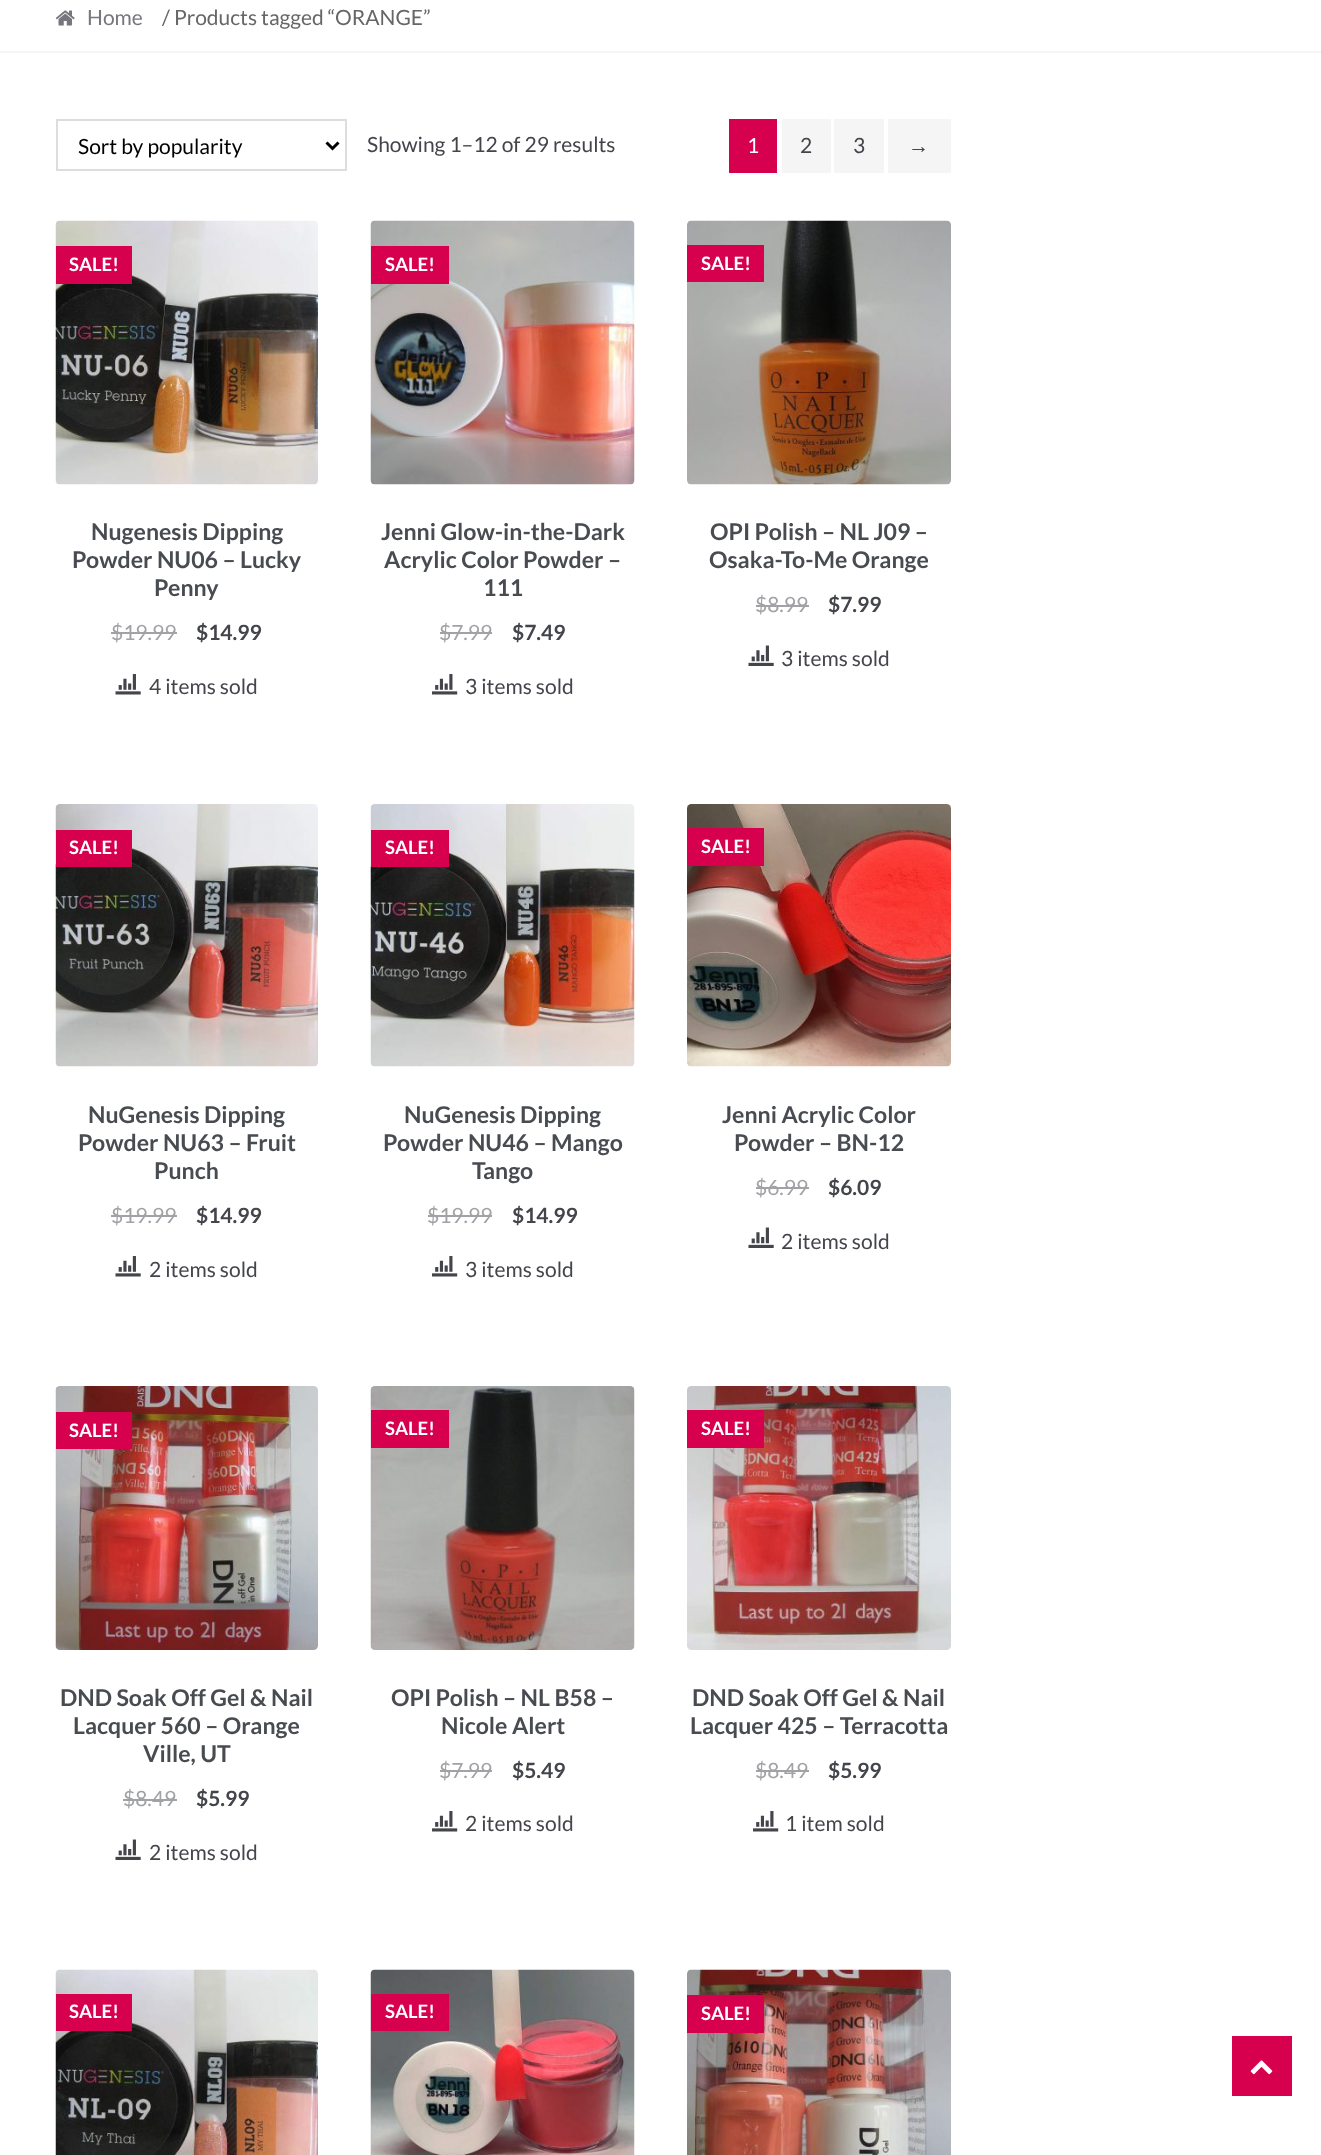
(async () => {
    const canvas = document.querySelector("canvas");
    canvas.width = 1321;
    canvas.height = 2155;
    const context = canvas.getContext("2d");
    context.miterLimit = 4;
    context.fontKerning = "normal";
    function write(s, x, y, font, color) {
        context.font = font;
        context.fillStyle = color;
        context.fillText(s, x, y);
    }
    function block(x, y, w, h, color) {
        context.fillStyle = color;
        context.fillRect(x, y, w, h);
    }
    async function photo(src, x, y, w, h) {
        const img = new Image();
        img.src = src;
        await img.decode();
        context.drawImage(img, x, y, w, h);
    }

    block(0, 0, 1321, 2155, "rgb(255, 255, 255)");
    block(0, 51, 1321, 2, "rgb(245, 245, 245)");
    await photo("media/1.png", 55, 10, 20, 16);
    write("Home", 87, 25, "21px Lato", "rgb(117, 119, 125)");
    write("/ Products tagged “ORANGE”", 162, 25, "21px Lato", "rgb(102, 102, 102)");
    context.strokeStyle = "rgb(221, 221, 221)";
    context.lineWidth = 2;
    context.strokeRect(57, 120, 289, 50);
    context.beginPath();
    context.moveTo(326.5, 142.5);
    context.lineTo(332.5, 148.5);
    context.lineTo(338.5, 142.5);
    context.strokeStyle = "rgb(0, 0, 0)";
    context.lineWidth = 3;
    context.stroke();
    write("Sort by popularity", 78, 154, "21px Lato", "rgb(0, 0, 0)");
    write("Showing 1–12 of 29 results", 367, 152, "21px Lato", "rgb(67, 69, 75)");
    block(729, 119, 48, 54, "rgb(214, 0, 78)");
    write("1", 747, 153, "21px Lato", "rgb(255, 255, 255)");
    block(782, 119, 49, 54, "rgb(245, 245, 245)");
    write("2", 800, 153, "21px Lato", "rgb(67, 69, 75)");
    block(834, 119, 50, 54, "rgb(245, 245, 245)");
    write("3", 853, 153, "21px Lato", "rgb(67, 69, 75)");
    block(888, 119, 63, 54, "rgb(245, 245, 245)");
    write("→", 908, 153, "21px Liberation Sans", "rgb(67, 69, 75)");
    await photo("media/2.png", 55, 220, 263, 265);
    block(56, 246, 76, 38, "rgb(214, 0, 78)");
    write("SALE!", 69, 271, "bold 18.5px Lato", "rgb(255, 255, 255)");
    write("Nugenesis Dipping", 91, 540, "bold 23.1px Lato", "rgb(72, 76, 81)");
    write("Powder NU06 – Lucky", 72, 568, "bold 23.1px Lato", "rgb(72, 76, 81)");
    write("Penny", 154, 596, "bold 23.1px Lato", "rgb(72, 76, 81)");
    write("$19.99", 111, 640, "21px Lato", "rgb(161, 162, 165)");
    block(111, 632, 66, 2, "rgb(161, 162, 165)");
    write("$14.99", 196, 640, "bold 21px Lato", "rgb(67, 69, 75)");
    await photo("media/3.png", 115, 674, 26, 21);
    write("4 items sold", 149, 694, "21px Lato", "rgb(67, 69, 75)");
    await photo("media/4.png", 370, 220, 265, 265);
    block(371, 246, 78, 38, "rgb(214, 0, 78)");
    write("SALE!", 385, 271, "bold 18.5px Lato", "rgb(255, 255, 255)");
    write("Jenni Glow-in-the-Dark", 381, 540, "bold 23.1px Lato", "rgb(72, 76, 81)");
    write("Acrylic Color Powder –", 384, 568, "bold 23.1px Lato", "rgb(72, 76, 81)");
    write("111", 483, 596, "bold 23.1px Lato", "rgb(72, 76, 81)");
    write("$7.99", 439, 640, "21px Lato", "rgb(161, 162, 165)");
    block(440, 632, 52, 2, "rgb(161, 162, 165)");
    write("$7.49", 512, 640, "bold 21px Lato", "rgb(67, 69, 75)");
    await photo("media/5.png", 432, 674, 26, 21);
    write("3 items sold", 465, 694, "21px Lato", "rgb(67, 69, 75)");
    await photo("media/6.png", 687, 220, 264, 265);
    block(687, 245, 77, 37, "rgb(214, 0, 78)");
    write("SALE!", 701, 270, "bold 18.5px Lato", "rgb(255, 255, 255)");
    write("OPI Polish – NL J09 –", 710, 540, "bold 23.1px Lato", "rgb(72, 76, 81)");
    write("Osaka-To-Me Orange", 709, 568, "bold 23.1px Lato", "rgb(72, 76, 81)");
    write("$8.99", 755, 612, "21px Lato", "rgb(161, 162, 165)");
    block(756, 605, 53, 2, "rgb(161, 162, 165)");
    write("$7.99", 828, 612, "bold 21px Lato", "rgb(67, 69, 75)");
    await photo("media/7.png", 748, 645, 26, 21);
    write("3 items sold", 781, 666, "21px Lato", "rgb(67, 69, 75)");
    await photo("media/8.png", 55, 804, 263, 263);
    block(56, 830, 76, 37, "rgb(214, 0, 78)");
    write("SALE!", 69, 854, "bold 18.5px Lato", "rgb(255, 255, 255)");
    write("NuGenesis Dipping", 88, 1123, "bold 23.1px Lato", "rgb(72, 76, 81)");
    write("Powder NU63 – Fruit", 78, 1151, "bold 23.1px Lato", "rgb(72, 76, 81)");
    write("Punch", 154, 1179, "bold 23.1px Lato", "rgb(72, 76, 81)");
    write("$19.99", 111, 1223, "21px Lato", "rgb(161, 162, 165)");
    block(111, 1215, 66, 2, "rgb(161, 162, 165)");
    write("$14.99", 196, 1223, "bold 21px Lato", "rgb(67, 69, 75)");
    await photo("media/3.png", 115, 1256, 26, 21);
    write("2 items sold", 149, 1277, "21px Lato", "rgb(67, 69, 75)");
    await photo("media/9.png", 370, 804, 265, 263);
    block(371, 830, 78, 37, "rgb(214, 0, 78)");
    write("SALE!", 385, 854, "bold 18.5px Lato", "rgb(255, 255, 255)");
    write("NuGenesis Dipping", 404, 1123, "bold 23.1px Lato", "rgb(72, 76, 81)");
    write("Powder NU46 – Mango", 383, 1151, "bold 23.1px Lato", "rgb(72, 76, 81)");
    write("Tango", 472, 1179, "bold 23.1px Lato", "rgb(72, 76, 81)");
    write("$19.99", 427, 1223, "21px Lato", "rgb(161, 162, 165)");
    block(428, 1215, 64, 2, "rgb(161, 162, 165)");
    write("$14.99", 512, 1223, "bold 21px Lato", "rgb(67, 69, 75)");
    await photo("media/5.png", 432, 1256, 26, 21);
    write("3 items sold", 465, 1277, "21px Lato", "rgb(67, 69, 75)");
    await photo("media/10.png", 687, 804, 264, 263);
    block(687, 828, 77, 38, "rgb(214, 0, 78)");
    write("SALE!", 701, 853, "bold 18.5px Lato", "rgb(255, 255, 255)");
    write("Jenni Acrylic Color", 722, 1123, "bold 23.1px Lato", "rgb(72, 76, 81)");
    write("Powder – BN-12", 734, 1151, "bold 23.1px Lato", "rgb(72, 76, 81)");
    write("$6.99", 755, 1195, "21px Lato", "rgb(161, 162, 165)");
    block(756, 1187, 53, 2, "rgb(161, 162, 165)");
    write("$6.09", 828, 1195, "bold 21px Lato", "rgb(67, 69, 75)");
    await photo("media/7.png", 748, 1227, 26, 21);
    write("2 items sold", 781, 1249, "21px Lato", "rgb(67, 69, 75)");
    await photo("media/11.png", 55, 1386, 263, 264);
    block(56, 1412, 76, 37, "rgb(214, 0, 78)");
    write("SALE!", 69, 1437, "bold 18.5px Lato", "rgb(255, 255, 255)");
    write("DND Soak Off Gel & Nail", 60, 1706, "bold 23.1px Lato", "rgb(72, 76, 81)");
    write("Lacquer 560 – Orange", 73, 1734, "bold 23.1px Lato", "rgb(72, 76, 81)");
    write("Ville, UT", 143, 1762, "bold 23.1px Lato", "rgb(72, 76, 81)");
    write("$8.49", 123, 1806, "21px Lato", "rgb(161, 162, 165)");
    block(123, 1799, 54, 2, "rgb(161, 162, 165)");
    write("$5.99", 196, 1806, "bold 21px Lato", "rgb(67, 69, 75)");
    await photo("media/7.png", 115, 1839, 26, 21);
    write("2 items sold", 149, 1860, "21px Lato", "rgb(67, 69, 75)");
    await photo("media/12.png", 370, 1386, 265, 264);
    block(371, 1410, 78, 38, "rgb(214, 0, 78)");
    write("SALE!", 385, 1435, "bold 18.5px Lato", "rgb(255, 255, 255)");
    write("OPI Polish – NL B58 –", 391, 1706, "bold 23.1px Lato", "rgb(72, 76, 81)");
    write("Nicole Alert", 441, 1734, "bold 23.1px Lato", "rgb(72, 76, 81)");
    write("$7.99", 439, 1778, "21px Lato", "rgb(161, 162, 165)");
    block(440, 1770, 52, 2, "rgb(161, 162, 165)");
    write("$5.49", 512, 1778, "bold 21px Lato", "rgb(67, 69, 75)");
    await photo("media/5.png", 432, 1811, 26, 21);
    write("2 items sold", 465, 1831, "21px Lato", "rgb(67, 69, 75)");
    await photo("media/13.png", 687, 1386, 264, 264);
    block(687, 1410, 77, 38, "rgb(214, 0, 78)");
    write("SALE!", 701, 1435, "bold 18.5px Lato", "rgb(255, 255, 255)");
    write("DND Soak Off Gel & Nail", 692, 1706, "bold 23.1px Lato", "rgb(72, 76, 81)");
    write("Lacquer 425 – Terracotta", 690, 1734, "bold 23.1px Lato", "rgb(72, 76, 81)");
    write("$8.49", 755, 1778, "21px Lato", "rgb(161, 162, 165)");
    block(756, 1770, 53, 2, "rgb(161, 162, 165)");
    write("$5.99", 828, 1778, "bold 21px Lato", "rgb(67, 69, 75)");
    await photo("media/5.png", 753, 1811, 26, 21);
    write("1 item sold", 785, 1831, "21px Lato", "rgb(67, 69, 75)");
    await photo("media/14.png", 55, 1969, 263, 186);
    block(56, 1994, 76, 37, "rgb(214, 0, 78)");
    write("SALE!", 69, 2018, "bold 18.5px Lato", "rgb(255, 255, 255)");
    await photo("media/15.png", 370, 1969, 265, 186);
    block(371, 1994, 78, 37, "rgb(214, 0, 78)");
    write("SALE!", 385, 2018, "bold 18.5px Lato", "rgb(255, 255, 255)");
    await photo("media/16.png", 687, 1969, 264, 186);
    block(687, 1995, 77, 38, "rgb(214, 0, 78)");
    write("SALE!", 701, 2020, "bold 18.5px Lato", "rgb(255, 255, 255)");
    block(1232, 2036, 60, 60, "rgb(214, 0, 78)");
    await photo("media/17.png", 1250, 2060, 23, 15);
})();
